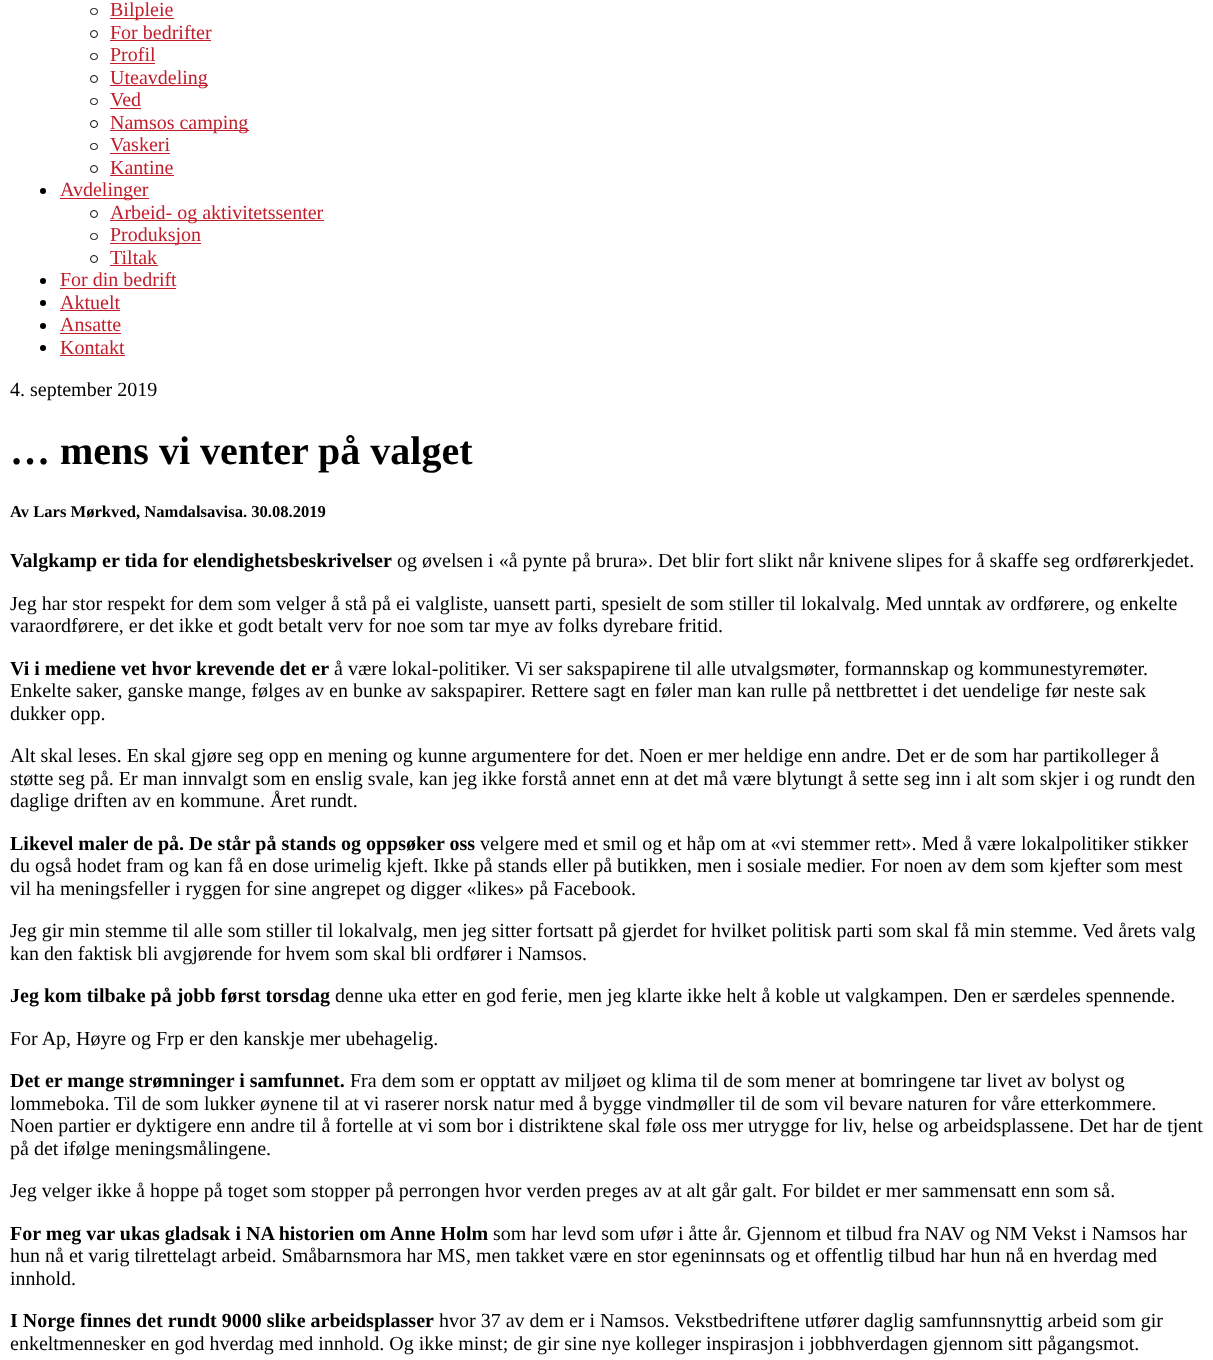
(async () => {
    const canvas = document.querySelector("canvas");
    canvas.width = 1213;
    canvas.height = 1360;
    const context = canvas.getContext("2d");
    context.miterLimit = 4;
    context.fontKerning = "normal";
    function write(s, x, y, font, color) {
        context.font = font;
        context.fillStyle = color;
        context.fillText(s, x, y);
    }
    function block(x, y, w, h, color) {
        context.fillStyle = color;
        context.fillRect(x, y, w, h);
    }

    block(0, 0, 1213, 1360, "rgb(255, 255, 255)");
    context.beginPath();
    context.roundRect(90.5, 8.5, 7, 6, 3);
    context.strokeStyle = "rgb(0, 0, 0)";
    context.stroke();
    block(110, 18, 64, 1, "rgb(193, 29, 42)");
    write("Bilpleie", 110, 16, "20px Liberation Serif", "rgb(193, 29, 42)");
    context.beginPath();
    context.arc(94, 34, 3.5, 0, Math.PI * 2);
    context.stroke();
    write("For bedrifter", 110, 39, "20px Liberation Serif", "rgb(193, 29, 42)");
    block(110, 40, 101, 1, "rgb(193, 29, 42)");
    context.beginPath();
    context.roundRect(90.5, 53.5, 7, 6, 3);
    context.stroke();
    write("Profil", 110, 61, "20px Liberation Serif", "rgb(193, 29, 42)");
    block(110, 63, 45, 1, "rgb(193, 29, 42)");
    context.beginPath();
    context.arc(94, 79, 3.5, 0, Math.PI * 2);
    context.stroke();
    block(110, 85, 98, 1, "rgb(193, 29, 42)");
    write("Uteavdeling", 110, 84, "20px Liberation Serif", "rgb(193, 29, 42)");
    context.beginPath();
    context.roundRect(90.5, 98.5, 7, 6, 3);
    context.stroke();
    write("Ved", 110, 106, "20px Liberation Serif", "rgb(193, 29, 42)");
    block(110, 108, 31, 1, "rgb(193, 29, 42)");
    context.beginPath();
    context.arc(94, 124, 3.5, 0, Math.PI * 2);
    context.stroke();
    block(110, 130, 139, 1, "rgb(193, 29, 42)");
    write("Namsos camping", 110, 129, "20px Liberation Serif", "rgb(193, 29, 42)");
    context.beginPath();
    context.roundRect(90.5, 143.5, 7, 6, 3);
    context.stroke();
    write("Vaskeri", 110, 151, "20px Liberation Serif", "rgb(193, 29, 42)");
    block(110, 153, 60, 1, "rgb(193, 29, 42)");
    context.beginPath();
    context.arc(94, 169, 3.5, 0, Math.PI * 2);
    context.stroke();
    write("Kantine", 110, 174, "20px Liberation Serif", "rgb(193, 29, 42)");
    block(110, 175, 64, 1, "rgb(193, 29, 42)");
    context.fillStyle = "rgb(0, 0, 0)";
    context.beginPath();
    context.arc(43, 191, 3, 0, Math.PI * 2);
    context.fill();
    block(60, 198, 89, 1, "rgb(193, 29, 42)");
    write("Avdelinger", 60, 196, "20px Liberation Serif", "rgb(193, 29, 42)");
    context.beginPath();
    context.arc(94, 214, 3.5, 0, Math.PI * 2);
    context.stroke();
    block(110, 220, 214, 1, "rgb(193, 29, 42)");
    write("Arbeid- og aktivitetssenter", 110, 219, "20px Liberation Serif", "rgb(193, 29, 42)");
    context.beginPath();
    context.roundRect(90.5, 233.5, 7, 6, 3);
    context.stroke();
    block(110, 243, 91, 1, "rgb(193, 29, 42)");
    write("Produksjon", 110, 241, "20px Liberation Serif", "rgb(193, 29, 42)");
    context.beginPath();
    context.arc(94, 259, 3.5, 0, Math.PI * 2);
    context.stroke();
    write("Tiltak", 110, 264, "20px Liberation Serif", "rgb(193, 29, 42)");
    block(110, 265, 48, 1, "rgb(193, 29, 42)");
    context.fillStyle = "rgb(0, 0, 0)";
    context.beginPath();
    context.arc(43, 281, 3, 0, Math.PI * 2);
    context.fill();
    write("For din bedrift", 60, 286, "20px Liberation Serif", "rgb(193, 29, 42)");
    block(60, 288, 116, 1, "rgb(193, 29, 42)");
    context.fillStyle = "rgb(0, 0, 0)";
    context.beginPath();
    context.arc(43, 303, 3, 0, Math.PI * 2);
    context.fill();
    write("Aktuelt", 60, 309, "20px Liberation Serif", "rgb(193, 29, 42)");
    block(60, 310, 60, 1, "rgb(193, 29, 42)");
    context.fillStyle = "rgb(0, 0, 0)";
    context.beginPath();
    context.arc(43, 326, 3, 0, Math.PI * 2);
    context.fill();
    write("Ansatte", 60, 331, "20px Liberation Serif", "rgb(193, 29, 42)");
    block(60, 333, 61, 1, "rgb(193, 29, 42)");
    context.fillStyle = "rgb(0, 0, 0)";
    context.beginPath();
    context.arc(43, 348, 3, 0, Math.PI * 2);
    context.fill();
    write("Kontakt", 60, 354, "20px Liberation Serif", "rgb(193, 29, 42)");
    block(60, 355, 65, 1, "rgb(193, 29, 42)");
    write("4. september 2019", 10, 396, "20px Liberation Serif", "rgb(0, 0, 0)");
    write("… mens vi venter på valget", 10, 464, "bold 40px Liberation Serif", "rgb(0, 0, 0)");
    write("Av Lars Mørkved, Namdalsavisa. 30.08.2019", 10, 517, "bold 16.6px Liberation Serif", "rgb(0, 0, 0)");
    write("Valgkamp er tida for elendighetsbeskrivelser", 10, 567, "bold 20px Liberation Serif", "rgb(0, 0, 0)");
    write("og øvelsen i «å pynte på brura». Det blir fort slikt når knivene slipes for å skaffe seg ordførerkjedet.", 397, 567, "20px Liberation Serif", "rgb(0, 0, 0)");
    write("Jeg har stor respekt for dem som velger å stå på ei valgliste, uansett parti, spesielt de som stiller til lokalvalg. Med unntak av ordførere, og enkelte", 10, 610, "20px Liberation Serif", "rgb(0, 0, 0)");
    write("varaordførere, er det ikke et godt betalt verv for noe som tar mye av folks dyrebare fritid.", 10, 632, "20px Liberation Serif", "rgb(0, 0, 0)");
    write("Vi i mediene vet hvor krevende det er", 10, 675, "bold 20px Liberation Serif", "rgb(0, 0, 0)");
    write("å være lokal-politiker. Vi ser sakspapirene til alle utvalgsmøter, formannskap og kommunestyremøter.", 334, 675, "20px Liberation Serif", "rgb(0, 0, 0)");
    write("Enkelte saker, ganske mange, følges av en bunke av sakspapirer. Rettere sagt en føler man kan rulle på nettbrettet i det uendelige før neste sak", 10, 697, "20px Liberation Serif", "rgb(0, 0, 0)");
    write("dukker opp.", 10, 720, "20px Liberation Serif", "rgb(0, 0, 0)");
    write("Alt skal leses. En skal gjøre seg opp en mening og kunne argumentere for det. Noen er mer heldige enn andre. Det er de som har partikolleger å", 10, 762, "20px Liberation Serif", "rgb(0, 0, 0)");
    write("støtte seg på. Er man innvalgt som en enslig svale, kan jeg ikke forstå annet enn at det må være blytungt å sette seg inn i alt som skjer i og rundt den", 10, 785, "20px Liberation Serif", "rgb(0, 0, 0)");
    write("daglige driften av en kommune. Året rundt.", 10, 807, "20px Liberation Serif", "rgb(0, 0, 0)");
    write("Likevel maler de på. De står på stands og oppsøker oss", 10, 850, "bold 20px Liberation Serif", "rgb(0, 0, 0)");
    write("velgere med et smil og et håp om at «vi stemmer rett». Med å være lokalpolitiker stikker", 480, 850, "20px Liberation Serif", "rgb(0, 0, 0)");
    write("du også hodet fram og kan få en dose urimelig kjeft. Ikke på stands eller på butikken, men i sosiale medier. For noen av dem som kjefter som mest", 10, 872, "20px Liberation Serif", "rgb(0, 0, 0)");
    write("vil ha meningsfeller i ryggen for sine angrepet og digger «likes» på Facebook.", 10, 895, "20px Liberation Serif", "rgb(0, 0, 0)");
    write("Jeg gir min stemme til alle som stiller til lokalvalg, men jeg sitter fortsatt på gjerdet for hvilket politisk parti som skal få min stemme. Ved årets valg", 10, 937, "20px Liberation Serif", "rgb(0, 0, 0)");
    write("kan den faktisk bli avgjørende for hvem som skal bli ordfører i Namsos.", 10, 960, "20px Liberation Serif", "rgb(0, 0, 0)");
    write("Jeg kom tilbake på jobb først torsdag", 10, 1002, "bold 20px Liberation Serif", "rgb(0, 0, 0)");
    write("denne uka etter en god ferie, men jeg klarte ikke helt å koble ut valgkampen. Den er særdeles spennende.", 335, 1002, "20px Liberation Serif", "rgb(0, 0, 0)");
    write("For Ap, Høyre og Frp er den kanskje mer ubehagelig.", 10, 1045, "20px Liberation Serif", "rgb(0, 0, 0)");
    write("Det er mange strømninger i samfunnet.", 10, 1087, "bold 20px Liberation Serif", "rgb(0, 0, 0)");
    write("Fra dem som er opptatt av miljøet og klima til de som mener at bomringene tar livet av bolyst og", 350, 1087, "20px Liberation Serif", "rgb(0, 0, 0)");
    write("lommeboka. Til de som lukker øynene til at vi raserer norsk natur med å bygge vindmøller til de som vil bevare naturen for våre etterkommere.", 10, 1110, "20px Liberation Serif", "rgb(0, 0, 0)");
    write("Noen partier er dyktigere enn andre til å fortelle at vi som bor i distriktene skal føle oss mer utrygge for liv, helse og arbeidsplassene. Det har de tjent", 10, 1132, "20px Liberation Serif", "rgb(0, 0, 0)");
    write("på det ifølge meningsmålingene.", 10, 1155, "20px Liberation Serif", "rgb(0, 0, 0)");
    write("Jeg velger ikke å hoppe på toget som stopper på perrongen hvor verden preges av at alt går galt. For bildet er mer sammensatt enn som så.", 10, 1197, "20px Liberation Serif", "rgb(0, 0, 0)");
    write("For meg var ukas gladsak i NA historien om Anne Holm", 10, 1240, "bold 20px Liberation Serif", "rgb(0, 0, 0)");
    write("som har levd som ufør i åtte år. Gjennom et tilbud fra NAV og NM Vekst i Namsos har", 493, 1240, "20px Liberation Serif", "rgb(0, 0, 0)");
    write("hun nå et varig tilrettelagt arbeid. Småbarnsmora har MS, men takket være en stor egeninnsats og et offentlig tilbud har hun nå en hverdag med", 10, 1262, "20px Liberation Serif", "rgb(0, 0, 0)");
    write("innhold.", 10, 1285, "20px Liberation Serif", "rgb(0, 0, 0)");
    write("I Norge finnes det rundt 9000 slike arbeidsplasser", 10, 1327, "bold 20px Liberation Serif", "rgb(0, 0, 0)");
    write("hvor 37 av dem er i Namsos. Vekstbedriftene utfører daglig samfunnsnyttig arbeid som gir", 439, 1327, "20px Liberation Serif", "rgb(0, 0, 0)");
    write("enkeltmennesker en god hverdag med innhold. Og ikke minst; de gir sine nye kolleger inspirasjon i jobbhverdagen gjennom sitt pågangsmot.", 10, 1350, "20px Liberation Serif", "rgb(0, 0, 0)");
})();
